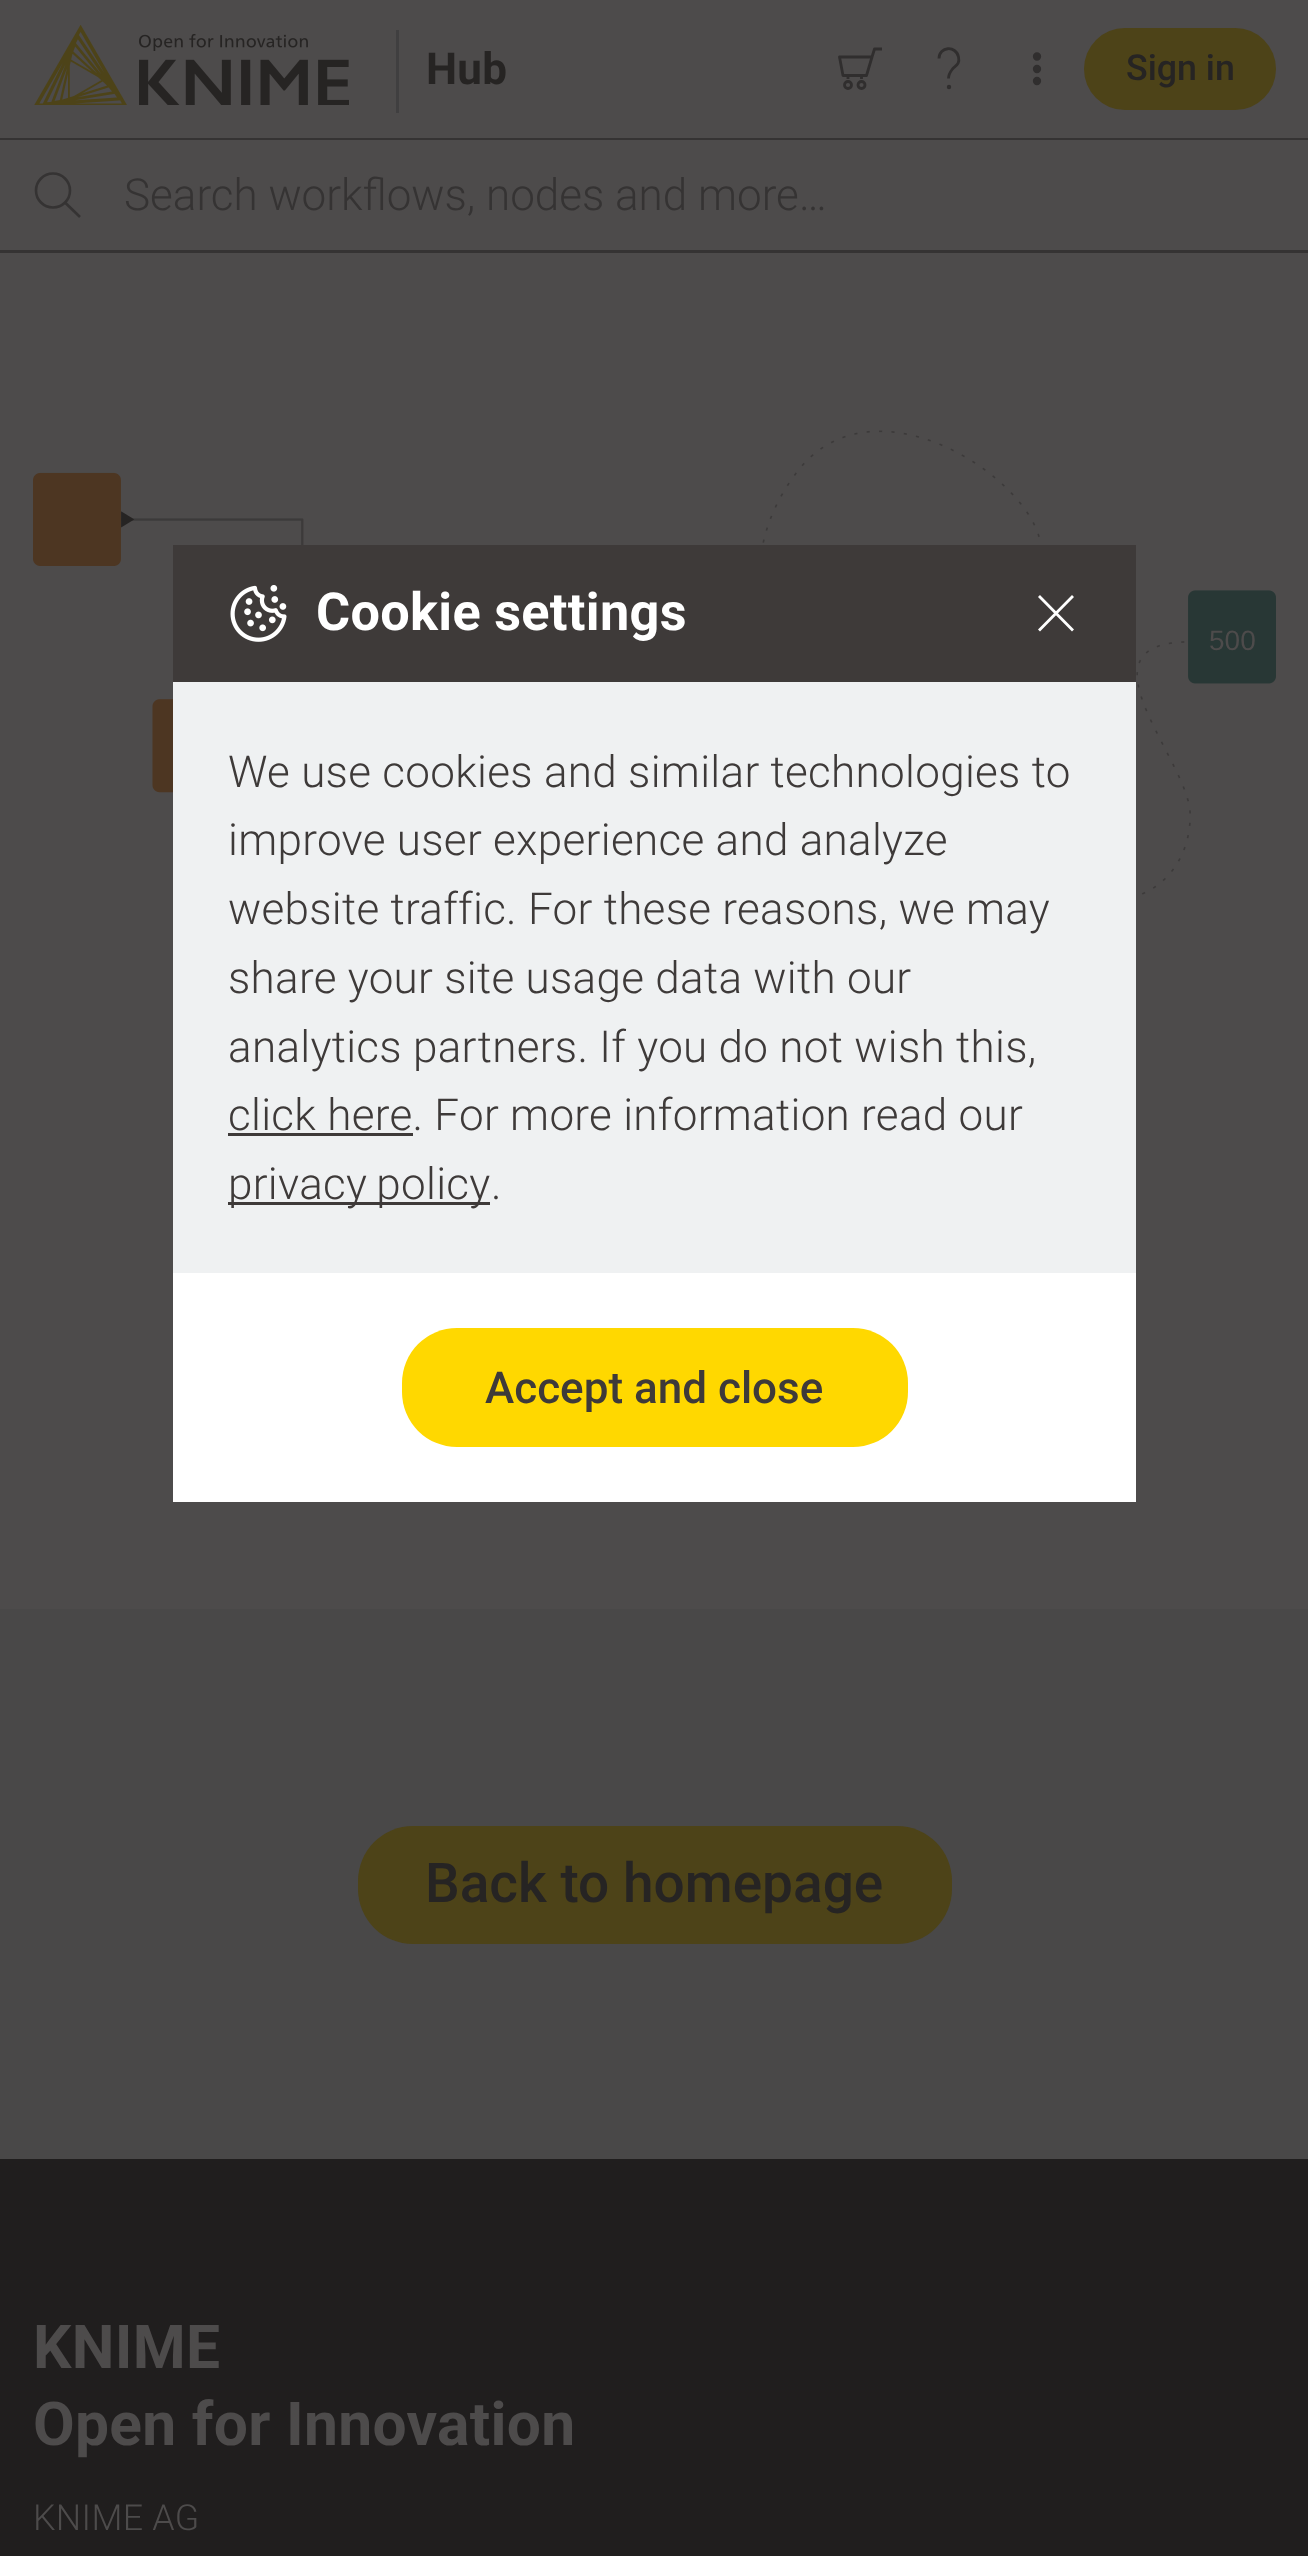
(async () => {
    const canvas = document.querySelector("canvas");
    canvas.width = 1308;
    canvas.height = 2556;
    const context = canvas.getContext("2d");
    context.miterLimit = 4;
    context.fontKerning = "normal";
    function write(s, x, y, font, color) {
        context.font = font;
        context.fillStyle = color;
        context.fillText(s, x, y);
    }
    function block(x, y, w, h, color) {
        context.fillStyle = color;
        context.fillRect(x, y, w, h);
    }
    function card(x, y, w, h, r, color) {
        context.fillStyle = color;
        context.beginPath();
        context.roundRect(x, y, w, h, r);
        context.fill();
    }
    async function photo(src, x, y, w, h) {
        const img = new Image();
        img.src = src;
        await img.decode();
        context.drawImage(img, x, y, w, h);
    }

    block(0, 0, 1308, 2556, "rgb(73, 72, 72)");
    block(0, 0, 1308, 138, "rgb(77, 75, 75)");
    await photo("media/1.png", 34, 25, 315, 80);
    block(396, 30, 3, 83, "rgb(64, 63, 64)");
    context.letterSpacing = "0.3px";
    write("Hub", 426, 84, "bold 44px Roboto", "rgb(38, 36, 35)");
    context.beginPath();
    context.moveTo(866.5, 75.5);
    context.lineTo(843, 75.5);
    context.lineTo(839.5, 57);
    context.lineTo(872, 57);
    context.closePath();
    context.moveTo(872, 57);
    context.lineTo(874.5, 49);
    context.lineTo(882, 49);
    context.moveTo(848, 75.5);
    context.lineTo(848, 79);
    context.moveTo(861.5, 75.5);
    context.lineTo(861.5, 79);
    context.strokeStyle = "rgb(48, 46, 46)";
    context.lineWidth = 2.8;
    context.lineJoin = "round";
    context.stroke();
    context.beginPath();
    context.arc(848, 85, 3.5, 0, Math.PI * 2);
    context.stroke();
    context.beginPath();
    context.arc(861.5, 85, 3.5, 0, Math.PI * 2);
    context.stroke();
    context.beginPath();
    context.moveTo(948.5, 78.5);
    context.bezierCurveTo(948.5, 75, 950.5, 71.5, 952.5, 69);
    context.bezierCurveTo(956.5, 65, 960, 63.5, 958.5, 57);
    context.bezierCurveTo(956, 45, 939, 46.5, 939, 58.5);
    context.stroke();
    context.beginPath();
    context.moveTo(949, 87);
    context.lineTo(949, 87);
    context.lineWidth = 4.4;
    context.lineCap = "round";
    context.stroke();
    context.beginPath();
    context.moveTo(1037, 56.5);
    context.lineTo(1037, 56.5);
    context.moveTo(1037, 69);
    context.lineTo(1037, 69);
    context.moveTo(1037, 81);
    context.lineTo(1037, 81);
    context.lineWidth = 8.3;
    context.lineJoin = "miter";
    context.stroke();
    card(1084, 28, 192, 82, 41, "rgb(77, 67, 24)");
    context.letterSpacing = "0px";
    write("Sign in", 1126, 80, "500 35.75px Roboto", "rgb(38, 36, 35)");
    block(0, 138, 1308, 2, "rgb(53, 51, 51)");
    block(0, 250, 1308, 3, "rgb(53, 51, 51)");
    block(0, 140, 1308, 110, "rgb(77, 75, 75)");
    context.beginPath();
    context.arc(53, 190.5, 17, 0, Math.PI * 2);
    context.strokeStyle = "rgb(53, 51, 51)";
    context.lineWidth = 2.6;
    context.stroke();
    context.beginPath();
    context.moveTo(65, 202.5);
    context.lineTo(80, 217);
    context.lineCap = "butt";
    context.lineJoin = "round";
    context.stroke();
    write("Search workflows, nodes and more…", 124, 210, "300 44px Roboto", "rgb(53, 51, 51)");
    block(0, 253, 1308, 1356, "rgb(77, 75, 75)");
    await photo("media/2.png", 33, 430, 1243, 465);
    write("500", 1209, 650, "28px Liberation Sans", "rgb(77, 75, 75)");
    card(358, 1826, 594, 118, 55, "rgb(77, 67, 24)");
    write("Back to homepage", 425, 1902, "500 55px Roboto", "rgb(38, 36, 35)");
    block(0, 2159, 1308, 397, "rgb(32, 30, 30)");
    context.letterSpacing = "0.3px";
    write("KNIME", 33, 2368, "bold 60.5px Roboto", "rgb(77, 75, 75)");
    write("Open for Innovation", 33, 2445, "bold 60.5px Roboto", "rgb(77, 75, 75)");
    write("KNIME AG", 33, 2530, "300 35.75px Roboto", "rgb(77, 75, 75)");
    block(173, 1273, 963, 229, "rgb(255, 255, 255)");
    block(173, 545, 963, 137, "rgb(62, 58, 57)");
    await photo("media/3.png", 230, 585, 57, 57);
    write("Cookie settings", 316, 630, "bold 52.25px Roboto", "rgb(255, 255, 255)");
    context.beginPath();
    context.moveTo(1039, 630.5);
    context.lineTo(1073, 596);
    context.moveTo(1039, 596);
    context.lineTo(1073, 630.5);
    context.strokeStyle = "rgb(255, 255, 255)";
    context.lineWidth = 2.8;
    context.stroke();
    block(173, 682, 963, 591, "rgb(239, 241, 242)");
    write("We use cookies and similar technologies to", 228, 787, "300 44px Roboto", "rgb(62, 58, 57)");
    write("improve user experience and analyze", 228, 855, "300 44px Roboto", "rgb(62, 58, 57)");
    write("website traffic. For these reasons, we may", 228, 924, "300 44px Roboto", "rgb(62, 58, 57)");
    write("share your site usage data with our", 228, 993, "300 44px Roboto", "rgb(62, 58, 57)");
    write("analytics partners. If you do not wish this,", 228, 1062, "300 44px Roboto", "rgb(62, 58, 57)");
    write("click here. For more information read our", 228, 1130, "300 44px Roboto", "rgb(62, 58, 57)");
    block(228, 1133, 185, 3, "rgb(62, 58, 57)");
    block(228, 1202, 262, 3, "rgb(62, 58, 57)");
    context.wordSpacing = "-2px";
    write("privacy policy", 228, 1199, "300 44px Roboto", "rgb(62, 58, 57)");
    context.wordSpacing = "0px";
    write(".", 491, 1199, "300 44px Roboto", "rgb(62, 58, 57)");
    card(402, 1328, 506, 119, 55, "rgb(255, 216, 0)");
    context.letterSpacing = "0px";
    write("Accept and close", 485, 1403, "500 44px Roboto", "rgb(62, 58, 57)");
})();
